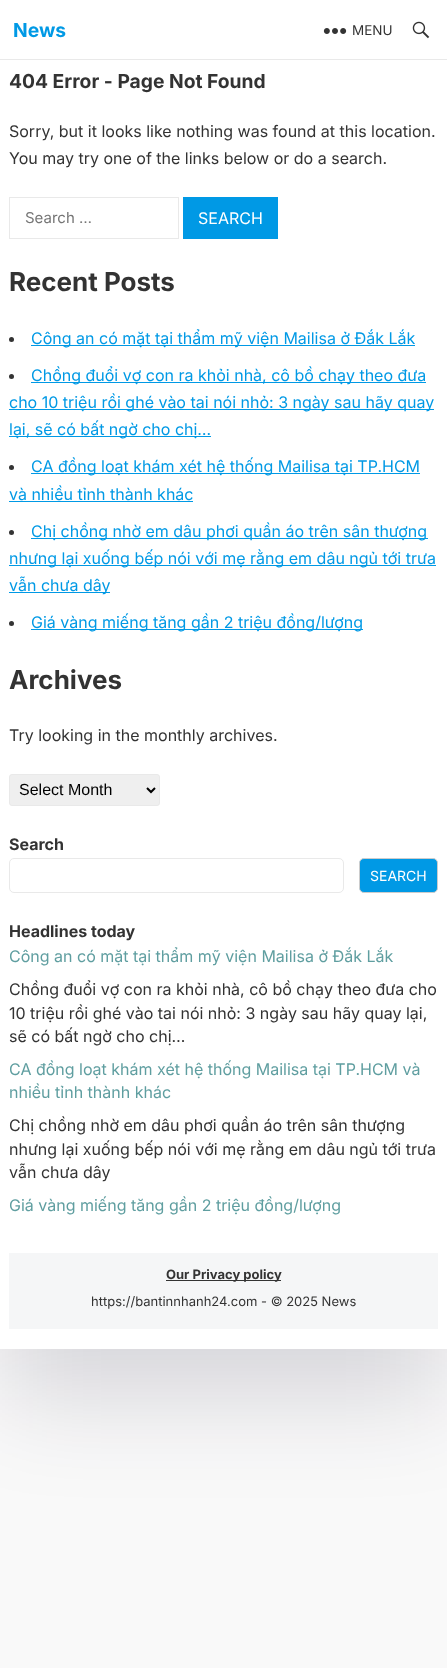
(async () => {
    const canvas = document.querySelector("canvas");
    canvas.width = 447;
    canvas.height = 1668;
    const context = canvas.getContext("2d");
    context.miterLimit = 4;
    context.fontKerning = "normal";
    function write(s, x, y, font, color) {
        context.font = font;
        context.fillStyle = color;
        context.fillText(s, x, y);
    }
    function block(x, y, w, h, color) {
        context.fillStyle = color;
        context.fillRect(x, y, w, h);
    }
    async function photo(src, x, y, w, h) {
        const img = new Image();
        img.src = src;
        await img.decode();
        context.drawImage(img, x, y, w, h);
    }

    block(0, 0, 447, 1668, "rgb(249, 249, 249)");
    context.fillStyle = "rgba(17, 12, 46, 0.15)";
    context.filter = "blur(50px)";
    context.beginPath();
    context.rect(0, 48, 447, 1349);
    context.fill();
    context.filter = "none";
    block(0, 0, 447, 1349, "rgb(255, 255, 255)");
    block(0, 59, 447, 1, "rgb(233, 233, 233)");
    write("News", 13, 37, "bold 19.25px Inter", "rgb(0, 153, 229)");
    await photo("media/1.png", 323, 28, 24, 6);
    write("MENU", 352, 35, "13.5px Inter", "rgb(51, 51, 51)");
    await photo("media/2.png", 412, 21, 18, 18);
    write("404 Error - Page Not Found", 9, 88, "bold 19.25px Inter", "rgb(51, 51, 51)");
    write("Sorry, but it looks like nothing was found at this location.", 9, 137, "16px Inter", "rgb(51, 51, 51)");
    write("You may try one of the links below or do a search.", 9, 164, "16px Inter", "rgb(51, 51, 51)");
    context.strokeStyle = "rgb(233, 233, 233)";
    context.strokeRect(9.5, 197.5, 169, 41);
    write("Search …", 25, 223, "15px Inter", "rgb(117, 117, 117)");
    block(183, 197, 95, 42, "rgb(0, 153, 229)");
    write("SEARCH", 198, 224, "16px Inter", "rgb(255, 255, 255)");
    write("Recent Posts", 9, 291, "bold 26px Inter", "rgb(51, 51, 51)");
    context.beginPath();
    context.arc(11.5, 339.5, 2.5, 0, Math.PI * 2);
    context.fill();
    block(31, 345, 384, 1, "rgb(0, 153, 229)");
    write("Công an có mặt tại thẩm mỹ viện Mailisa ở Đắk Lắk", 31, 344, "16px Inter", "rgb(0, 153, 229)");
    context.fillStyle = "rgb(51, 51, 51)";
    context.beginPath();
    context.arc(11.5, 376.5, 2.5, 0, Math.PI * 2);
    context.fill();
    block(31, 382, 395, 1, "rgb(0, 153, 229)");
    write("Chồng đuổi vợ con ra khỏi nhà, cô bồ chạy theo đưa", 31, 381, "16px Inter", "rgb(0, 153, 229)");
    block(9, 409, 425, 1, "rgb(0, 153, 229)");
    write("cho 10 triệu rồi ghé vào tai nói nhỏ: 3 ngày sau hãy quay", 9, 408, "16px Inter", "rgb(0, 153, 229)");
    block(9, 436, 202, 1, "rgb(0, 153, 229)");
    write("lại, sẽ có bất ngờ cho chị…", 9, 435, "16px Inter", "rgb(0, 153, 229)");
    context.fillStyle = "rgb(51, 51, 51)";
    context.beginPath();
    context.arc(11.5, 467.5, 2.5, 0, Math.PI * 2);
    context.fill();
    block(31, 473, 389, 1, "rgb(0, 153, 229)");
    write("CA đồng loạt khám xét hệ thống Mailisa tại TP.HCM", 31, 472, "16px Inter", "rgb(0, 153, 229)");
    write("và nhiều tỉnh thành khác", 9, 500, "16px Inter", "rgb(0, 153, 229)");
    block(9, 501, 184, 1, "rgb(0, 153, 229)");
    context.fillStyle = "rgb(51, 51, 51)";
    context.beginPath();
    context.arc(11.5, 532.5, 2.5, 0, Math.PI * 2);
    context.fill();
    block(31, 538, 397, 1, "rgb(0, 153, 229)");
    write("Chị chồng nhờ em dâu phơi quần áo trên sân thượng", 31, 537, "16px Inter", "rgb(0, 153, 229)");
    block(9, 565, 427, 1, "rgb(0, 153, 229)");
    write("nhưng lại xuống bếp nói với mẹ rằng em dâu ngủ tới trưa", 9, 564, "16px Inter", "rgb(0, 153, 229)");
    block(9, 592, 101, 1, "rgb(0, 153, 229)");
    write("vẫn chưa dây", 9, 591, "16px Inter", "rgb(0, 153, 229)");
    context.fillStyle = "rgb(51, 51, 51)";
    context.beginPath();
    context.arc(11.5, 623.5, 2.5, 0, Math.PI * 2);
    context.fill();
    block(31, 629, 332, 1, "rgb(0, 153, 229)");
    write("Giá vàng miếng tăng gần 2 triệu đồng/lượng", 31, 628, "16px Inter", "rgb(0, 153, 229)");
    write("Archives", 9, 689, "bold 26px Inter", "rgb(51, 51, 51)");
    write("Try looking in the monthly archives.", 9, 741, "16px Inter", "rgb(51, 51, 51)");
    context.fillStyle = "rgb(239, 239, 239)";
    context.beginPath();
    context.roundRect(9.5, 774.5, 150, 31, 2.5);
    context.fill();
    context.stroke();
    context.beginPath();
    context.moveTo(147, 788);
    context.lineTo(151, 792);
    context.lineTo(155, 788);
    context.strokeStyle = "rgb(0, 0, 0)";
    context.lineWidth = 2;
    context.stroke();
    write("Select Month", 19, 795, "16px Liberation Sans", "rgb(0, 0, 0)");
    write("Search", 9, 850, "bold 16px Inter", "rgb(51, 51, 51)");
    context.beginPath();
    context.roundRect(9.5, 858.5, 334, 34, 4.5);
    context.strokeStyle = "rgb(233, 233, 233)";
    context.lineWidth = 1;
    context.stroke();
    context.fillStyle = "rgb(0, 153, 229)";
    context.beginPath();
    context.roundRect(359.5, 858.5, 78, 34, 4.5);
    context.fill();
    context.strokeStyle = "rgb(204, 204, 204)";
    context.stroke();
    write("SEARCH", 370, 881, "14px Inter", "rgb(255, 255, 255)");
    write("Headlines today", 9, 937, "bold 16px Inter", "rgb(51, 51, 51)");
    write("Công an có mặt tại thẩm mỹ viện Mailisa ở Đắk Lắk", 9, 962, "16px Inter", "rgb(95, 158, 160)");
    write("Chồng đuổi vợ con ra khỏi nhà, cô bồ chạy theo đưa cho", 9, 995, "16px Inter", "rgb(51, 51, 51)");
    write("10 triệu rồi ghé vào tai nói nhỏ: 3 ngày sau hãy quay lại,", 9, 1019, "16px Inter", "rgb(51, 51, 51)");
    write("sẽ có bất ngờ cho chị…", 9, 1042, "16px Inter", "rgb(51, 51, 51)");
    write("CA đồng loạt khám xét hệ thống Mailisa tại TP.HCM và", 9, 1075, "16px Inter", "rgb(95, 158, 160)");
    write("nhiều tỉnh thành khác", 9, 1098, "16px Inter", "rgb(95, 158, 160)");
    write("Chị chồng nhờ em dâu phơi quần áo trên sân thượng", 9, 1131, "16px Inter", "rgb(51, 51, 51)");
    write("nhưng lại xuống bếp nói với mẹ rằng em dâu ngủ tới trưa", 9, 1155, "16px Inter", "rgb(51, 51, 51)");
    write("vẫn chưa dây", 9, 1178, "16px Inter", "rgb(51, 51, 51)");
    write("Giá vàng miếng tăng gần 2 triệu đồng/lượng", 9, 1211, "16px Inter", "rgb(95, 158, 160)");
    block(9, 1253, 429, 76, "rgb(245, 246, 247)");
    block(166, 1280, 115, 1, "rgb(51, 51, 51)");
    write("Our Privacy policy", 166, 1279, "bold 13px Inter", "rgb(51, 51, 51)");
    write("https://bantinnhanh24.com - © 2025 News", 91, 1306, "13px Inter", "rgb(51, 51, 51)");
})();
